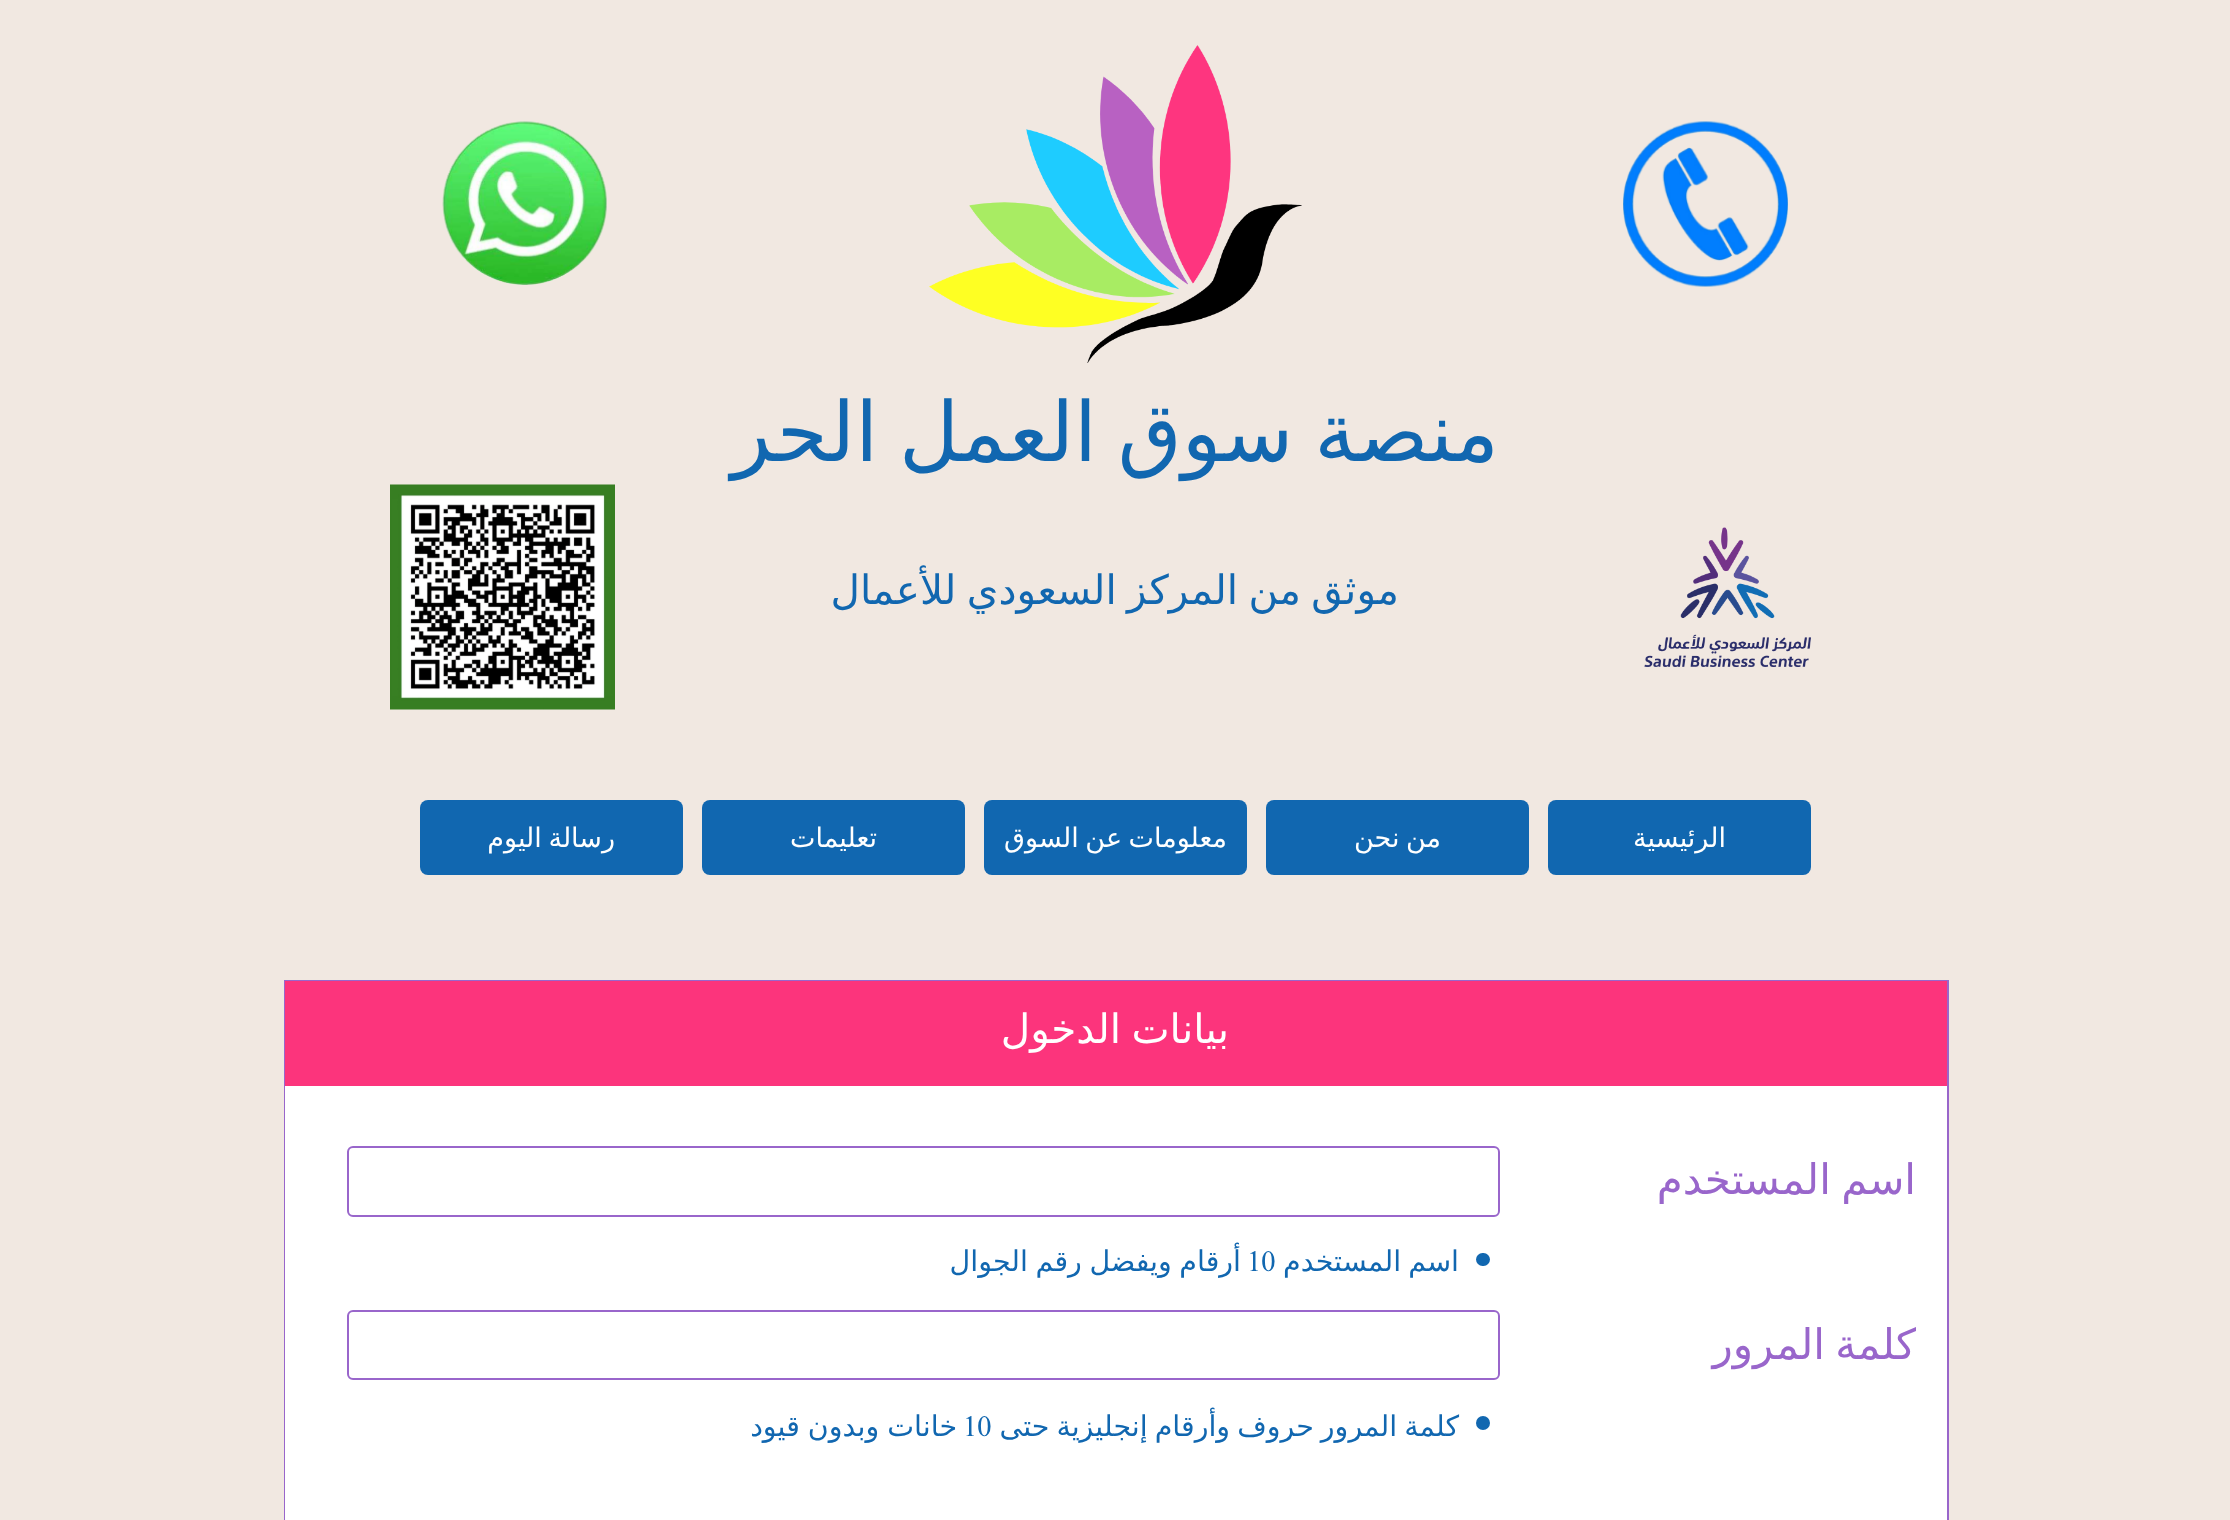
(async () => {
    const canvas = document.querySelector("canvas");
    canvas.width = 2230;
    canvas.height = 1520;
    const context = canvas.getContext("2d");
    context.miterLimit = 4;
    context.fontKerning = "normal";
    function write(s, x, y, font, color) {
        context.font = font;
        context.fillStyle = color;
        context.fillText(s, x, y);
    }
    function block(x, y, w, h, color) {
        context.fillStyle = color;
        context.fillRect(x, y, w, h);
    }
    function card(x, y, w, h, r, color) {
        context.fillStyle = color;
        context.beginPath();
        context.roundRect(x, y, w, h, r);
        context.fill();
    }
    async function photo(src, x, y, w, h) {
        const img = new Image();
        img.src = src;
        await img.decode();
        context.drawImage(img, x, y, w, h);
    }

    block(0, 0, 2230, 1520, "rgb(241, 232, 225)");
    await photo("media/1.png", 1623, 121, 165, 166);
    await photo("media/2.png", 929, 45, 373, 318);
    await photo("media/3.png", 442, 121, 165, 164);
    context.wordSpacing = "-5.5px";
    context.direction = "rtl";
    write("منصة سوق العمل الحر", 1499, 461, "82.5px DejaVu Sans", "rgb(17, 103, 176)");
    await photo("media/4.png", 1644, 527, 167, 140);
    context.wordSpacing = "-2.5px";
    write("موثق من المركز السعودي للأعمال", 1399, 604, "40.5px DejaVu Sans", "rgb(17, 103, 176)");
    await photo("media/5.png", 390, 484, 225, 226);
    card(1548, 800, 263, 75, 8, "rgb(17, 103, 176)");
    context.wordSpacing = "0px";
    write("الرئيسية", 1726, 847, "27px DejaVu Sans", "rgb(255, 255, 255)");
    card(1266, 800, 263, 75, 8, "rgb(17, 103, 176)");
    context.wordSpacing = "-2px";
    write("من نحن", 1441, 847, "27px DejaVu Sans", "rgb(255, 255, 255)");
    card(984, 800, 263, 75, 8, "rgb(17, 103, 176)");
    context.wordSpacing = "0px";
    write("معلومات", 1227, 847, "27px DejaVu Sans", "rgb(255, 255, 255)");
    context.wordSpacing = "-2px";
    write("عن السوق", 1122, 847, "27px DejaVu Sans", "rgb(255, 255, 255)");
    card(702, 800, 263, 75, 8, "rgb(17, 103, 176)");
    context.wordSpacing = "0px";
    write("تعليمات", 877, 847, "27px DejaVu Sans", "rgb(255, 255, 255)");
    card(420, 800, 263, 75, 8, "rgb(17, 103, 176)");
    context.wordSpacing = "-2px";
    write("رسالة اليوم", 615, 847, "27px DejaVu Sans", "rgb(255, 255, 255)");
    context.strokeStyle = "rgb(153, 102, 203)";
    context.lineWidth = 2;
    context.strokeRect(285, 981, 1663, 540);
    block(285, 981, 1662, 105, "rgb(252, 52, 124)");
    context.wordSpacing = "-2.5px";
    write("بيانات الدخول", 1229, 1043, "40.5px DejaVu Sans", "rgb(255, 255, 255)");
    block(285, 1086, 1662, 434, "rgb(255, 255, 255)");
    context.wordSpacing = "-3px";
    write("اسم المستخدم", 1916, 1194, "42px DejaVu Sans", "rgb(153, 102, 203)");
    context.beginPath();
    context.roundRect(348, 1147, 1151, 69, 5);
    context.stroke();
    card(1476, 1253, 14, 13, 6.5, "rgb(17, 103, 176)");
    context.wordSpacing = "-2px";
    write("اسم المستخدم", 1459, 1271, "28.5px DejaVu Sans", "rgb(17, 103, 176)");
    context.wordSpacing = "0px";
    context.direction = "ltr";
    write("10", 1247, 1271, "28.5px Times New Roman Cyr", "rgb(17, 103, 176)");
    context.wordSpacing = "-1.5px";
    context.direction = "rtl";
    write("أرقام ويفضل رقم الجوال", 1241, 1271, "28.5px DejaVu Sans", "rgb(17, 103, 176)");
    context.wordSpacing = "-3px";
    write("كلمة المرور", 1916, 1359, "42px DejaVu Sans", "rgb(153, 102, 203)");
    context.beginPath();
    context.roundRect(348, 1311, 1151, 68, 5);
    context.stroke();
    context.fillStyle = "rgb(17, 103, 176)";
    context.beginPath();
    context.arc(1483, 1423, 7, 0, Math.PI * 2);
    context.fill();
    context.wordSpacing = "-2px";
    write("كلمة المرور حروف وأرقام إنجليزية حتى", 1459, 1436, "28.5px DejaVu Sans", "rgb(17, 103, 176)");
    context.wordSpacing = "0px";
    context.direction = "ltr";
    write("10", 963, 1436, "28.5px Times New Roman Cyr", "rgb(17, 103, 176)");
    context.wordSpacing = "-1px";
    context.direction = "rtl";
    write("خانات وبدون قيود", 957, 1436, "28.5px DejaVu Sans", "rgb(17, 103, 176)");
})();
